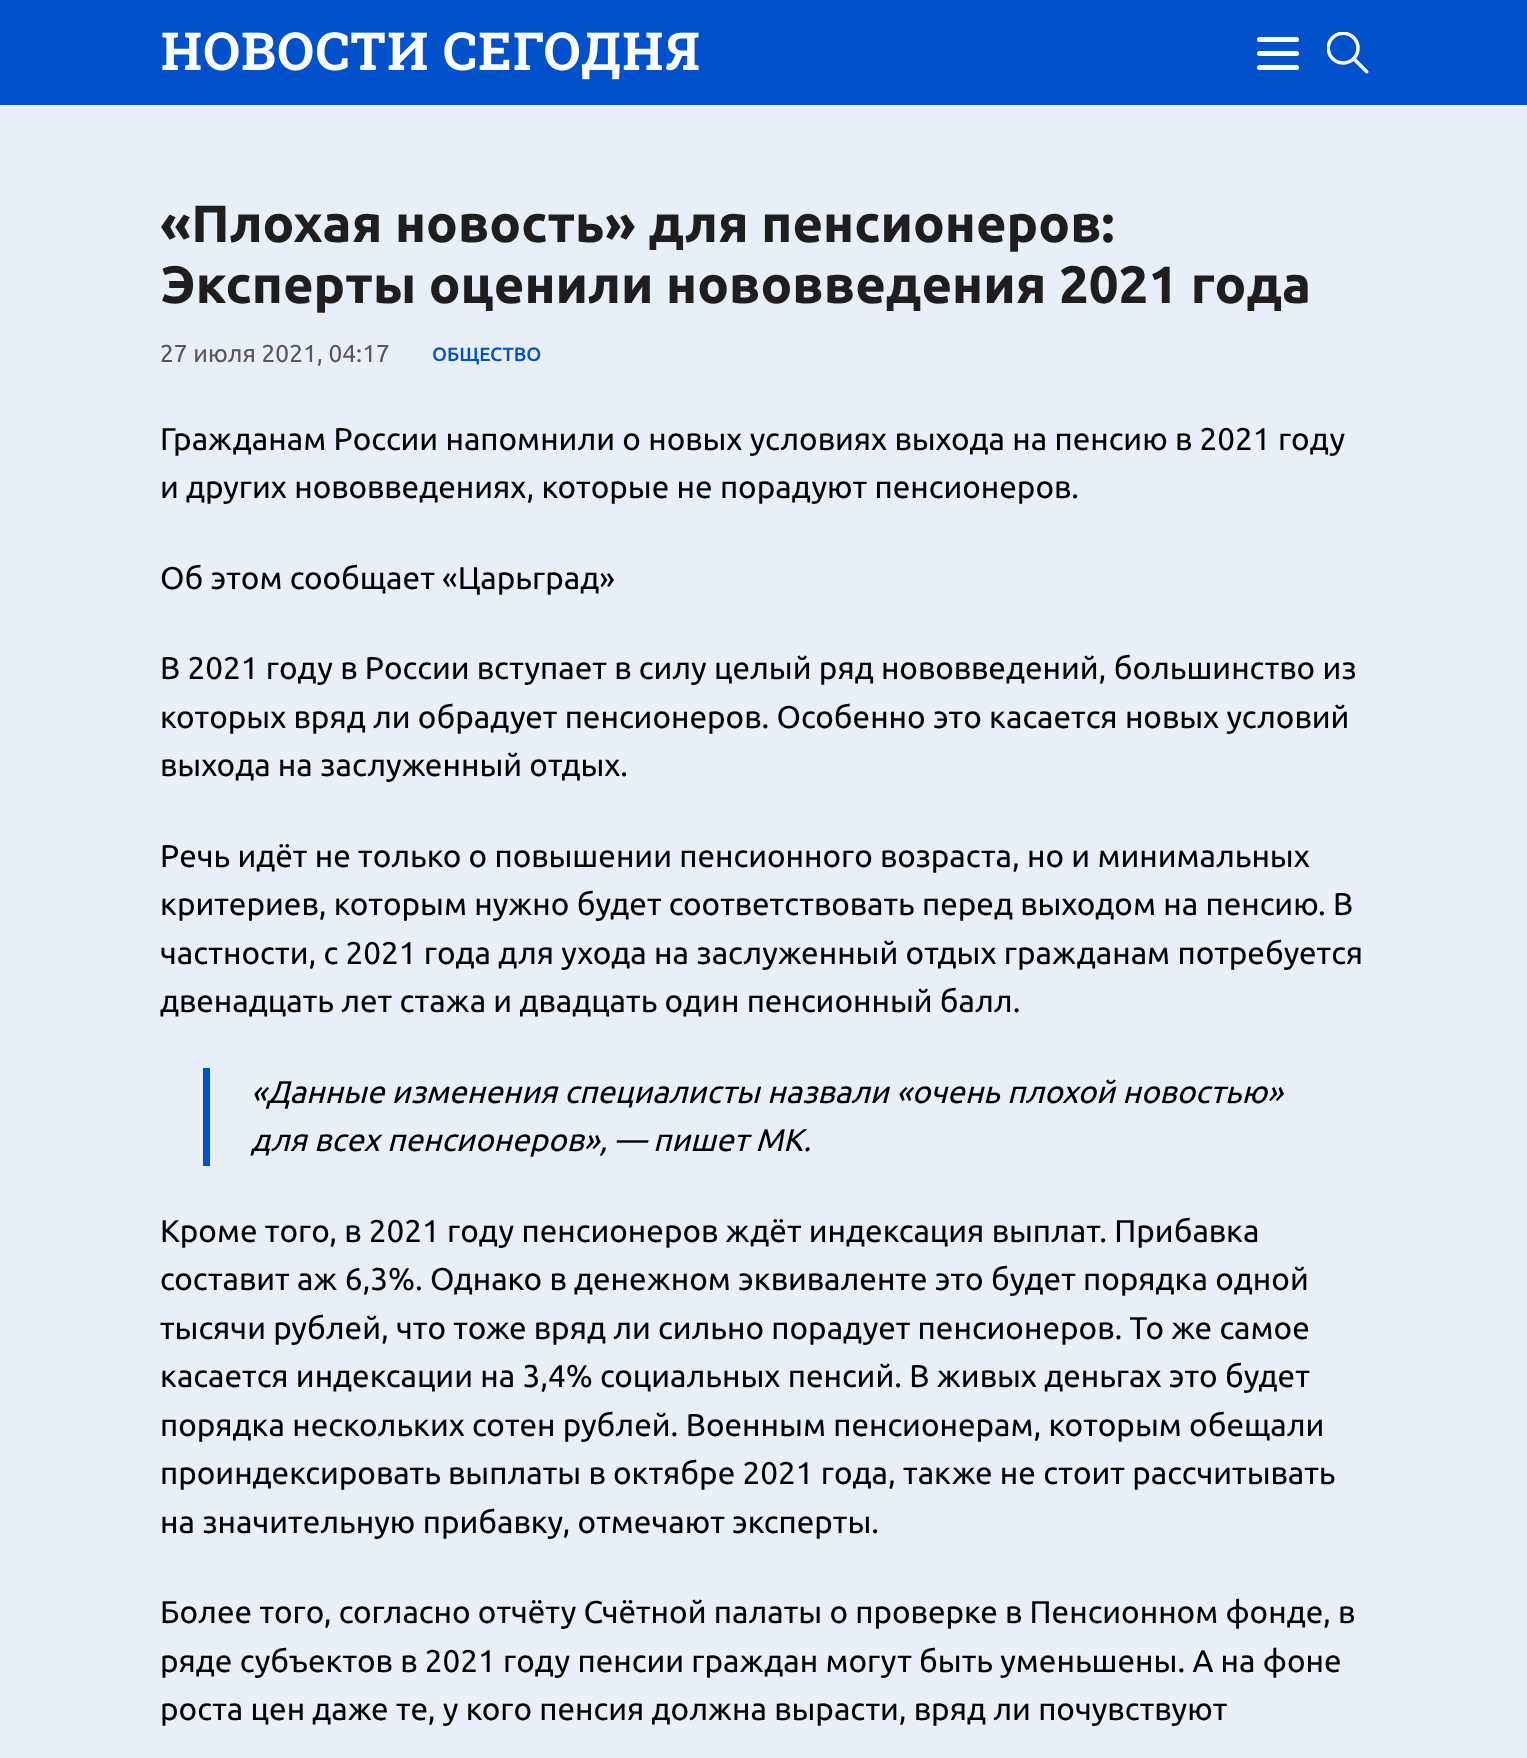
(async () => {
    const canvas = document.querySelector("canvas");
    canvas.width = 1527;
    canvas.height = 1758;
    const context = canvas.getContext("2d");
    context.miterLimit = 4;
    context.fontKerning = "normal";
    function write(s, x, y, font, color) {
        context.font = font;
        context.fillStyle = color;
        context.fillText(s, x, y);
    }
    function block(x, y, w, h, color) {
        context.fillStyle = color;
        context.fillRect(x, y, w, h);
    }
    function card(x, y, w, h, r, color) {
        context.fillStyle = color;
        context.beginPath();
        context.roundRect(x, y, w, h, r);
        context.fill();
    }
    async function photo(src, x, y, w, h) {
        const img = new Image();
        img.src = src;
        await img.decode();
        context.drawImage(img, x, y, w, h);
    }

    block(0, 0, 1527, 1758, "rgb(232, 239, 248)");
    block(0, 0, 1527, 105, "rgb(0, 81, 203)");
    await photo("media/1.png", 162, 32, 537, 48);
    card(1257, 51, 42, 5, 2.5, "rgb(255, 255, 255)");
    card(1257, 37, 42, 5, 2.5, "rgb(255, 255, 255)");
    card(1257, 65, 42, 5, 2.5, "rgb(255, 255, 255)");
    await photo("media/2.png", 1327, 32, 42, 42);
    write("«Плохая новость» для пенсионеров:", 160, 242, "bold 52.5px Ubuntu", "rgb(31, 29, 29)");
    write("Эксперты оценили нововведения 2021 года", 160, 303, "bold 52.5px Ubuntu", "rgb(31, 29, 29)");
    write("27 июля 2021, 04:17", 160, 362, "24.5px Ubuntu", "rgb(92, 85, 87)");
    write("ОБЩЕСТВО", 432, 361, "500 19.25px Ubuntu", "rgb(0, 81, 203)");
    write("Гражданам России напомнили о новых условиях выхода на пенсию в 2021 году", 160, 450, "31.5px Ubuntu", "rgb(0, 0, 0)");
    write("и других нововведениях, которые не порадуют пенсионеров.", 160, 498, "31.5px Ubuntu", "rgb(0, 0, 0)");
    write("Об этом сообщает «Царьград»", 160, 589, "31.5px Ubuntu", "rgb(0, 0, 0)");
    write("В 2021 году в России вступает в силу целый ряд нововведений, большинство из", 160, 679, "31.5px Ubuntu", "rgb(0, 0, 0)");
    write("которых вряд ли обрадует пенсионеров. Особенно это касается новых условий", 160, 728, "31.5px Ubuntu", "rgb(0, 0, 0)");
    write("выхода на заслуженный отдых.", 160, 776, "31.5px Ubuntu", "rgb(0, 0, 0)");
    write("Речь идёт не только о повышении пенсионного возраста, но и минимальных", 160, 867, "31.5px Ubuntu", "rgb(0, 0, 0)");
    write("критериев, которым нужно будет соответствовать перед выходом на пенсию. В", 160, 915, "31.5px Ubuntu", "rgb(0, 0, 0)");
    write("частности, с 2021 года для ухода на заслуженный отдых гражданам потребуется", 160, 964, "31.5px Ubuntu", "rgb(0, 0, 0)");
    write("двенадцать лет стажа и двадцать один пенсионный балл.", 160, 1012, "31.5px Ubuntu", "rgb(0, 0, 0)");
    block(203, 1068, 7, 98, "rgb(0, 81, 203)");
    write("«Данные изменения специалисты назвали «очень плохой новостью»", 251, 1103, "italic 31.5px Ubuntu", "rgb(0, 0, 0)");
    write("для всех пенсионеров», — пишет МК.", 251, 1151, "italic 31.5px Ubuntu", "rgb(0, 0, 0)");
    write("Кроме того, в 2021 году пенсионеров ждёт индексация выплат. Прибавка", 160, 1242, "31.5px Ubuntu", "rgb(0, 0, 0)");
    write("составит аж 6,3%. Однако в денежном эквиваленте это будет порядка одной", 160, 1290, "31.5px Ubuntu", "rgb(0, 0, 0)");
    write("тысячи рублей, что тоже вряд ли сильно порадует пенсионеров. То же самое", 160, 1339, "31.5px Ubuntu", "rgb(0, 0, 0)");
    write("касается индексации на 3,4% социальных пенсий. В живых деньгах это будет", 160, 1387, "31.5px Ubuntu", "rgb(0, 0, 0)");
    write("порядка нескольких сотен рублей. Военным пенсионерам, которым обещали", 160, 1436, "31.5px Ubuntu", "rgb(0, 0, 0)");
    write("проиндексировать выплаты в октябре 2021 года, также не стоит рассчитывать", 160, 1484, "31.5px Ubuntu", "rgb(0, 0, 0)");
    write("на значительную прибавку, отмечают эксперты.", 160, 1533, "31.5px Ubuntu", "rgb(0, 0, 0)");
    write("Более того, согласно отчёту Счётной палаты о проверке в Пенсионном фонде, в", 160, 1623, "31.5px Ubuntu", "rgb(0, 0, 0)");
    write("ряде субъектов в 2021 году пенсии граждан могут быть уменьшены. А на фоне", 160, 1672, "31.5px Ubuntu", "rgb(0, 0, 0)");
    write("роста цен даже те, у кого пенсия должна вырасти, вряд ли почувствуют", 160, 1720, "31.5px Ubuntu", "rgb(0, 0, 0)");
})();
